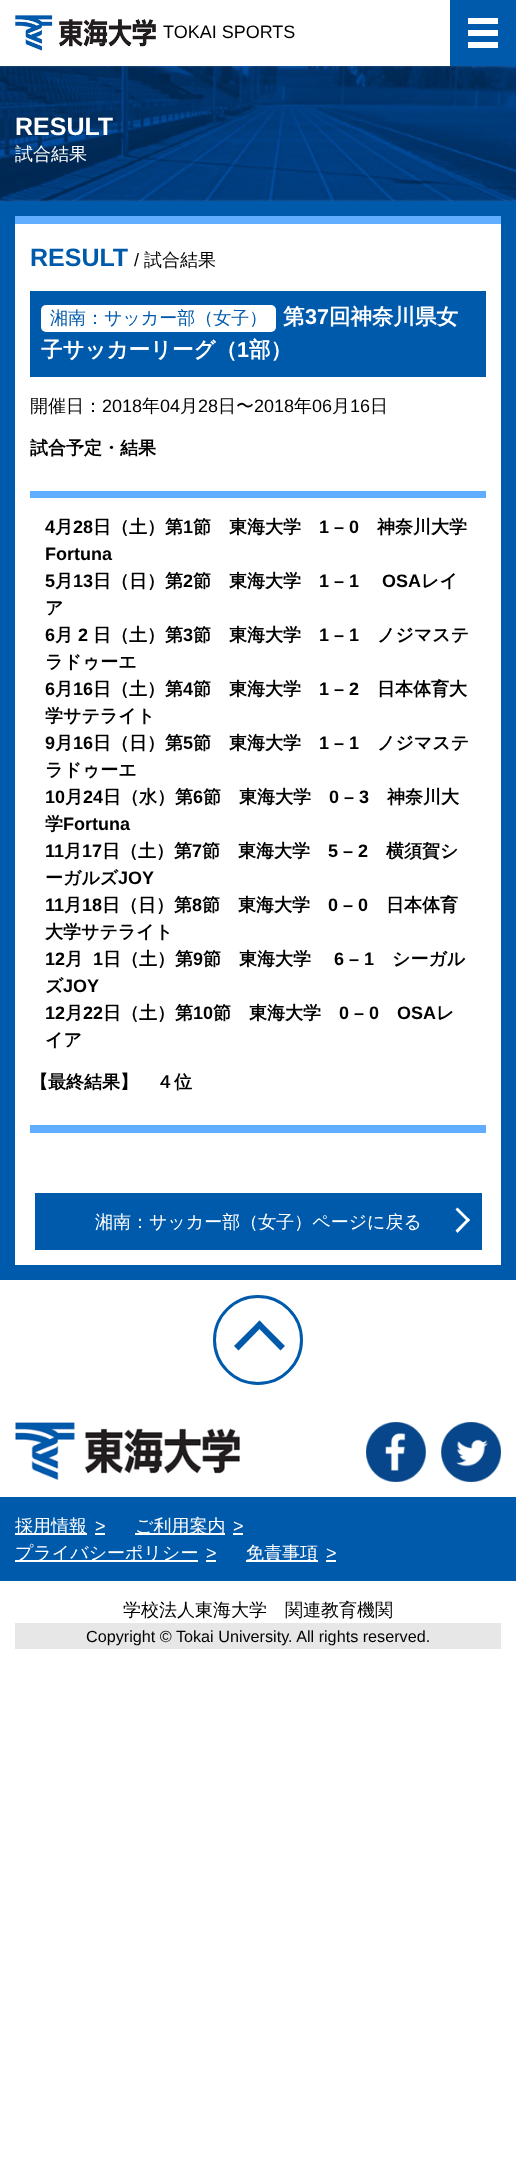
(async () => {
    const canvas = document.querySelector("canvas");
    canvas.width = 516;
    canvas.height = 2178;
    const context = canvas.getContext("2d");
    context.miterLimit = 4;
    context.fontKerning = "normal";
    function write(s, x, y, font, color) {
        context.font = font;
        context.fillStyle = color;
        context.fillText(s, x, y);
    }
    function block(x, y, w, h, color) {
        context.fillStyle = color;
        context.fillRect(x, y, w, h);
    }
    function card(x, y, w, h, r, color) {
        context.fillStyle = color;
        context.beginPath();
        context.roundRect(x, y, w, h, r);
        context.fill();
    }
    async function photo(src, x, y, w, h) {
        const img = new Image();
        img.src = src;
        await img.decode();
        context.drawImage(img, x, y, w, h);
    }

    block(0, 0, 516, 2178, "rgb(255, 255, 255)");
    await photo("media/1.png", 15, 15, 141, 36);
    write("TOKAI SPORTS", 163, 38, "18px Liberation Sans", "rgb(0, 0, 0)");
    block(450, 0, 66, 66, "rgb(0, 90, 171)");
    block(468, 18, 30, 6, "rgb(255, 255, 255)");
    block(468, 42, 30, 6, "rgb(255, 255, 255)");
    block(468, 30, 30, 6, "rgb(255, 255, 255)");
    await photo("media/2.png", 0, 66, 516, 135);
    write("RESULT", 15, 135, "bold 25px Liberation Sans", "rgb(255, 255, 255)");
    write("試合結果", 15, 160, "500 18px WenQuanYi Zen Hei", "rgb(255, 255, 255)");
    block(0, 201, 516, 1079, "rgb(0, 90, 171)");
    block(15, 224, 486, 1041, "rgb(255, 255, 255)");
    block(15, 216, 486, 8, "rgb(97, 173, 255)");
    write("RESULT", 30, 266, "bold 25px Liberation Sans", "rgb(0, 90, 171)");
    write("/", 134, 266, "18px Liberation Sans", "rgb(0, 0, 0)");
    write("試合結果", 144, 266, "500 18px WenQuanYi Zen Hei", "rgb(0, 0, 0)");
    block(30, 291, 456, 86, "rgb(0, 90, 171)");
    card(41, 305, 235, 27, 5, "rgb(255, 255, 255)");
    write("湘南：サッカー部（女子）", 50, 324, "500 18px WenQuanYi Zen Hei", "rgb(0, 90, 171)");
    write("第", 283, 324, "bold 21.5px WenQuanYi Zen Hei", "rgb(255, 255, 255)");
    write("37", 305, 324, "bold 21.5px Liberation Sans", "rgb(255, 255, 255)");
    write("回神奈川県女", 329, 324, "bold 21.5px WenQuanYi Zen Hei", "rgb(255, 255, 255)");
    write("子サッカーリーグ（", 41, 357, "bold 21.5px WenQuanYi Zen Hei", "rgb(255, 255, 255)");
    write("1", 237, 357, "bold 21.5px Liberation Sans", "rgb(255, 255, 255)");
    write("部）", 249, 357, "bold 21.5px WenQuanYi Zen Hei", "rgb(255, 255, 255)");
    write("開催日：", 30, 412, "500 18px WenQuanYi Zen Hei", "rgb(0, 0, 0)");
    write("2018", 102, 412, "18px Liberation Sans", "rgb(0, 0, 0)");
    write("年", 142, 412, "500 18px WenQuanYi Zen Hei", "rgb(0, 0, 0)");
    write("04", 160, 412, "18px Liberation Sans", "rgb(0, 0, 0)");
    write("月", 180, 412, "500 18px WenQuanYi Zen Hei", "rgb(0, 0, 0)");
    write("28", 198, 412, "18px Liberation Sans", "rgb(0, 0, 0)");
    write("日〜", 218, 412, "500 18px WenQuanYi Zen Hei", "rgb(0, 0, 0)");
    write("2018", 254, 412, "18px Liberation Sans", "rgb(0, 0, 0)");
    write("年", 294, 412, "500 18px WenQuanYi Zen Hei", "rgb(0, 0, 0)");
    write("06", 312, 412, "18px Liberation Sans", "rgb(0, 0, 0)");
    write("月", 332, 412, "500 18px WenQuanYi Zen Hei", "rgb(0, 0, 0)");
    write("16", 350, 412, "18px Liberation Sans", "rgb(0, 0, 0)");
    write("日", 370, 412, "500 18px WenQuanYi Zen Hei", "rgb(0, 0, 0)");
    write("試合予定・結果", 30, 454, "bold 18px WenQuanYi Zen Hei", "rgb(0, 0, 0)");
    block(30, 491, 456, 7, "rgb(97, 173, 255)");
    write("4", 45, 533, "bold 18px Liberation Sans", "rgb(0, 0, 0)");
    write("月", 55, 533, "bold 18px WenQuanYi Zen Hei", "rgb(0, 0, 0)");
    write("28", 73, 533, "bold 18px Liberation Sans", "rgb(0, 0, 0)");
    write("日（土）第", 93, 533, "bold 18px WenQuanYi Zen Hei", "rgb(0, 0, 0)");
    write("1", 183, 533, "bold 18px Liberation Sans", "rgb(0, 0, 0)");
    write("節　東海大学", 193, 533, "bold 18px WenQuanYi Zen Hei", "rgb(0, 0, 0)");
    write("1 – 0", 319, 533, "bold 18px Liberation Sans", "rgb(0, 0, 0)");
    write("神奈川大学", 377, 533, "bold 18px WenQuanYi Zen Hei", "rgb(0, 0, 0)");
    write("Fortuna", 45, 560, "bold 18px Liberation Sans", "rgb(0, 0, 0)");
    write("5", 45, 587, "bold 18px Liberation Sans", "rgb(0, 0, 0)");
    write("月", 55, 587, "bold 18px WenQuanYi Zen Hei", "rgb(0, 0, 0)");
    write("13", 73, 587, "bold 18px Liberation Sans", "rgb(0, 0, 0)");
    write("日（日）第", 93, 587, "bold 18px WenQuanYi Zen Hei", "rgb(0, 0, 0)");
    write("2", 183, 587, "bold 18px Liberation Sans", "rgb(0, 0, 0)");
    write("節　東海大学", 193, 587, "bold 18px WenQuanYi Zen Hei", "rgb(0, 0, 0)");
    write("1 – 1", 319, 587, "bold 18px Liberation Sans", "rgb(0, 0, 0)");
    write("OSA", 382, 587, "bold 18px Liberation Sans", "rgb(0, 0, 0)");
    write("レイ", 421, 587, "bold 18px WenQuanYi Zen Hei", "rgb(0, 0, 0)");
    write("ア", 45, 614, "bold 18px WenQuanYi Zen Hei", "rgb(0, 0, 0)");
    write("6", 45, 641, "bold 18px Liberation Sans", "rgb(0, 0, 0)");
    write("月", 55, 641, "bold 18px WenQuanYi Zen Hei", "rgb(0, 0, 0)");
    write("2", 78, 641, "bold 18px Liberation Sans", "rgb(0, 0, 0)");
    write("日（土）第", 93, 641, "bold 18px WenQuanYi Zen Hei", "rgb(0, 0, 0)");
    write("3", 183, 641, "bold 18px Liberation Sans", "rgb(0, 0, 0)");
    write("節　東海大学", 193, 641, "bold 18px WenQuanYi Zen Hei", "rgb(0, 0, 0)");
    write("1 – 1", 319, 641, "bold 18px Liberation Sans", "rgb(0, 0, 0)");
    write("ノジマステ", 377, 641, "bold 18px WenQuanYi Zen Hei", "rgb(0, 0, 0)");
    write("ラドゥーエ", 45, 668, "bold 18px WenQuanYi Zen Hei", "rgb(0, 0, 0)");
    write("6", 45, 695, "bold 18px Liberation Sans", "rgb(0, 0, 0)");
    write("月", 55, 695, "bold 18px WenQuanYi Zen Hei", "rgb(0, 0, 0)");
    write("16", 73, 695, "bold 18px Liberation Sans", "rgb(0, 0, 0)");
    write("日（土）第", 93, 695, "bold 18px WenQuanYi Zen Hei", "rgb(0, 0, 0)");
    write("4", 183, 695, "bold 18px Liberation Sans", "rgb(0, 0, 0)");
    write("節　東海大学", 193, 695, "bold 18px WenQuanYi Zen Hei", "rgb(0, 0, 0)");
    write("1 – 2", 319, 695, "bold 18px Liberation Sans", "rgb(0, 0, 0)");
    write("日本体育大", 377, 695, "bold 18px WenQuanYi Zen Hei", "rgb(0, 0, 0)");
    write("学サテライト", 45, 722, "bold 18px WenQuanYi Zen Hei", "rgb(0, 0, 0)");
    write("9", 45, 749, "bold 18px Liberation Sans", "rgb(0, 0, 0)");
    write("月", 55, 749, "bold 18px WenQuanYi Zen Hei", "rgb(0, 0, 0)");
    write("16", 73, 749, "bold 18px Liberation Sans", "rgb(0, 0, 0)");
    write("日（日）第", 93, 749, "bold 18px WenQuanYi Zen Hei", "rgb(0, 0, 0)");
    write("5", 183, 749, "bold 18px Liberation Sans", "rgb(0, 0, 0)");
    write("節　東海大学", 193, 749, "bold 18px WenQuanYi Zen Hei", "rgb(0, 0, 0)");
    write("1 – 1", 319, 749, "bold 18px Liberation Sans", "rgb(0, 0, 0)");
    write("ノジマステ", 377, 749, "bold 18px WenQuanYi Zen Hei", "rgb(0, 0, 0)");
    write("ラドゥーエ", 45, 776, "bold 18px WenQuanYi Zen Hei", "rgb(0, 0, 0)");
    write("10", 45, 803, "bold 18px Liberation Sans", "rgb(0, 0, 0)");
    write("月", 65, 803, "bold 18px WenQuanYi Zen Hei", "rgb(0, 0, 0)");
    write("24", 83, 803, "bold 18px Liberation Sans", "rgb(0, 0, 0)");
    write("日（水）第", 103, 803, "bold 18px WenQuanYi Zen Hei", "rgb(0, 0, 0)");
    write("6", 193, 803, "bold 18px Liberation Sans", "rgb(0, 0, 0)");
    write("節　東海大学", 203, 803, "bold 18px WenQuanYi Zen Hei", "rgb(0, 0, 0)");
    write("0 – 3", 329, 803, "bold 18px Liberation Sans", "rgb(0, 0, 0)");
    write("神奈川大", 387, 803, "bold 18px WenQuanYi Zen Hei", "rgb(0, 0, 0)");
    write("学", 45, 830, "bold 18px WenQuanYi Zen Hei", "rgb(0, 0, 0)");
    write("Fortuna", 63, 830, "bold 18px Liberation Sans", "rgb(0, 0, 0)");
    write("11", 45, 857, "bold 18px Liberation Sans", "rgb(0, 0, 0)");
    write("月", 64, 857, "bold 18px WenQuanYi Zen Hei", "rgb(0, 0, 0)");
    write("17", 82, 857, "bold 18px Liberation Sans", "rgb(0, 0, 0)");
    write("日（土）第", 102, 857, "bold 18px WenQuanYi Zen Hei", "rgb(0, 0, 0)");
    write("7", 192, 857, "bold 18px Liberation Sans", "rgb(0, 0, 0)");
    write("節　東海大学", 202, 857, "bold 18px WenQuanYi Zen Hei", "rgb(0, 0, 0)");
    write("5 – 2", 328, 857, "bold 18px Liberation Sans", "rgb(0, 0, 0)");
    write("横須賀シ", 386, 857, "bold 18px WenQuanYi Zen Hei", "rgb(0, 0, 0)");
    write("ーガルズ", 45, 884, "bold 18px WenQuanYi Zen Hei", "rgb(0, 0, 0)");
    write("JOY", 118, 884, "bold 18px Liberation Sans", "rgb(0, 0, 0)");
    write("11", 45, 911, "bold 18px Liberation Sans", "rgb(0, 0, 0)");
    write("月", 64, 911, "bold 18px WenQuanYi Zen Hei", "rgb(0, 0, 0)");
    write("18", 82, 911, "bold 18px Liberation Sans", "rgb(0, 0, 0)");
    write("日（日）第", 102, 911, "bold 18px WenQuanYi Zen Hei", "rgb(0, 0, 0)");
    write("8", 192, 911, "bold 18px Liberation Sans", "rgb(0, 0, 0)");
    write("節　東海大学", 202, 911, "bold 18px WenQuanYi Zen Hei", "rgb(0, 0, 0)");
    write("0 – 0", 328, 911, "bold 18px Liberation Sans", "rgb(0, 0, 0)");
    write("日本体育", 386, 911, "bold 18px WenQuanYi Zen Hei", "rgb(0, 0, 0)");
    write("大学サテライト", 45, 938, "bold 18px WenQuanYi Zen Hei", "rgb(0, 0, 0)");
    write("12", 45, 965, "bold 18px Liberation Sans", "rgb(0, 0, 0)");
    write("月", 65, 965, "bold 18px WenQuanYi Zen Hei", "rgb(0, 0, 0)");
    write("1", 93, 965, "bold 18px Liberation Sans", "rgb(0, 0, 0)");
    write("日（土）第", 103, 965, "bold 18px WenQuanYi Zen Hei", "rgb(0, 0, 0)");
    write("9", 193, 965, "bold 18px Liberation Sans", "rgb(0, 0, 0)");
    write("節　東海大学", 203, 965, "bold 18px WenQuanYi Zen Hei", "rgb(0, 0, 0)");
    write("6 – 1", 334, 965, "bold 18px Liberation Sans", "rgb(0, 0, 0)");
    write("シーガル", 392, 965, "bold 18px WenQuanYi Zen Hei", "rgb(0, 0, 0)");
    write("ズ", 45, 992, "bold 18px WenQuanYi Zen Hei", "rgb(0, 0, 0)");
    write("JOY", 63, 992, "bold 18px Liberation Sans", "rgb(0, 0, 0)");
    write("12", 45, 1019, "bold 18px Liberation Sans", "rgb(0, 0, 0)");
    write("月", 65, 1019, "bold 18px WenQuanYi Zen Hei", "rgb(0, 0, 0)");
    write("22", 83, 1019, "bold 18px Liberation Sans", "rgb(0, 0, 0)");
    write("日（土）第", 103, 1019, "bold 18px WenQuanYi Zen Hei", "rgb(0, 0, 0)");
    write("10", 193, 1019, "bold 18px Liberation Sans", "rgb(0, 0, 0)");
    write("節　東海大学", 213, 1019, "bold 18px WenQuanYi Zen Hei", "rgb(0, 0, 0)");
    write("0 – 0", 339, 1019, "bold 18px Liberation Sans", "rgb(0, 0, 0)");
    write("OSA", 397, 1019, "bold 18px Liberation Sans", "rgb(0, 0, 0)");
    write("レ", 436, 1019, "bold 18px WenQuanYi Zen Hei", "rgb(0, 0, 0)");
    write("イア", 45, 1046, "bold 18px WenQuanYi Zen Hei", "rgb(0, 0, 0)");
    write("【最終結果】　４位", 30, 1088, "bold 18px WenQuanYi Zen Hei", "rgb(0, 0, 0)");
    block(30, 1125, 456, 8, "rgb(97, 173, 255)");
    block(35, 1193, 447, 57, "rgb(0, 90, 171)");
    write("湘南：サッカー部（女子）ページに戻る", 95, 1228, "500 18px WenQuanYi Zen Hei", "rgb(255, 255, 255)");
    context.beginPath();
    context.moveTo(457.5, 1207.5);
    context.lineTo(470, 1220);
    context.lineTo(468, 1222);
    context.lineTo(455.5, 1209.5);
    context.closePath();
    context.fill();
    context.beginPath();
    context.moveTo(468, 1218);
    context.lineTo(470, 1220);
    context.lineTo(457.5, 1233);
    context.lineTo(455.5, 1230.5);
    context.closePath();
    context.fill();
    context.beginPath();
    context.arc(258, 1340, 43.5, 0, Math.PI * 2);
    context.strokeStyle = "rgb(0, 90, 171)";
    context.lineWidth = 3;
    context.stroke();
    context.fillStyle = "rgb(0, 90, 171)";
    context.beginPath();
    context.moveTo(259.5, 1320.5);
    context.lineTo(285, 1346);
    context.lineTo(280.5, 1350.5);
    context.lineTo(255.5, 1325);
    context.closePath();
    context.fill();
    context.beginPath();
    context.moveTo(259.5, 1320.5);
    context.lineTo(263.5, 1325);
    context.lineTo(238.5, 1350.5);
    context.lineTo(234, 1346);
    context.closePath();
    context.fill();
    await photo("media/3.png", 15, 1422, 225, 59);
    await photo("media/4.png", 366, 1422, 60, 60);
    await photo("media/5.png", 441, 1422, 60, 60);
    block(0, 1497, 516, 84, "rgb(0, 90, 171)");
    block(15, 1533, 72, 2, "rgb(255, 255, 255)");
    write("採用情報", 15, 1532, "500 18px WenQuanYi Zen Hei", "rgb(255, 255, 255)");
    write(">", 95, 1532, "18px Liberation Sans", "rgb(255, 255, 255)");
    block(95, 1533, 10, 2, "rgb(255, 255, 255)");
    block(135, 1533, 90, 2, "rgb(255, 255, 255)");
    write("ご利用案内", 135, 1532, "500 18px WenQuanYi Zen Hei", "rgb(255, 255, 255)");
    write(">", 233, 1532, "18px Liberation Sans", "rgb(255, 255, 255)");
    block(233, 1533, 10, 2, "rgb(255, 255, 255)");
    block(15, 1560, 183, 2, "rgb(255, 255, 255)");
    write("プライバシーポリシー", 15, 1559, "500 18px WenQuanYi Zen Hei", "rgb(255, 255, 255)");
    write(">", 206, 1559, "18px Liberation Sans", "rgb(255, 255, 255)");
    block(206, 1560, 10, 2, "rgb(255, 255, 255)");
    block(246, 1560, 72, 2, "rgb(255, 255, 255)");
    write("免責事項", 246, 1559, "500 18px WenQuanYi Zen Hei", "rgb(255, 255, 255)");
    write(">", 326, 1559, "18px Liberation Sans", "rgb(255, 255, 255)");
    block(326, 1560, 10, 2, "rgb(255, 255, 255)");
    write("学校法人東海大学　関連教育機関", 123, 1616, "500 18px WenQuanYi Zen Hei", "rgb(0, 0, 0)");
    block(15, 1623, 486, 26, "rgb(231, 231, 231)");
    write("Copyright © Tokai University. All rights reserved.", 86, 1642, "16.2px Liberation Sans", "rgb(0, 0, 0)");
})();
